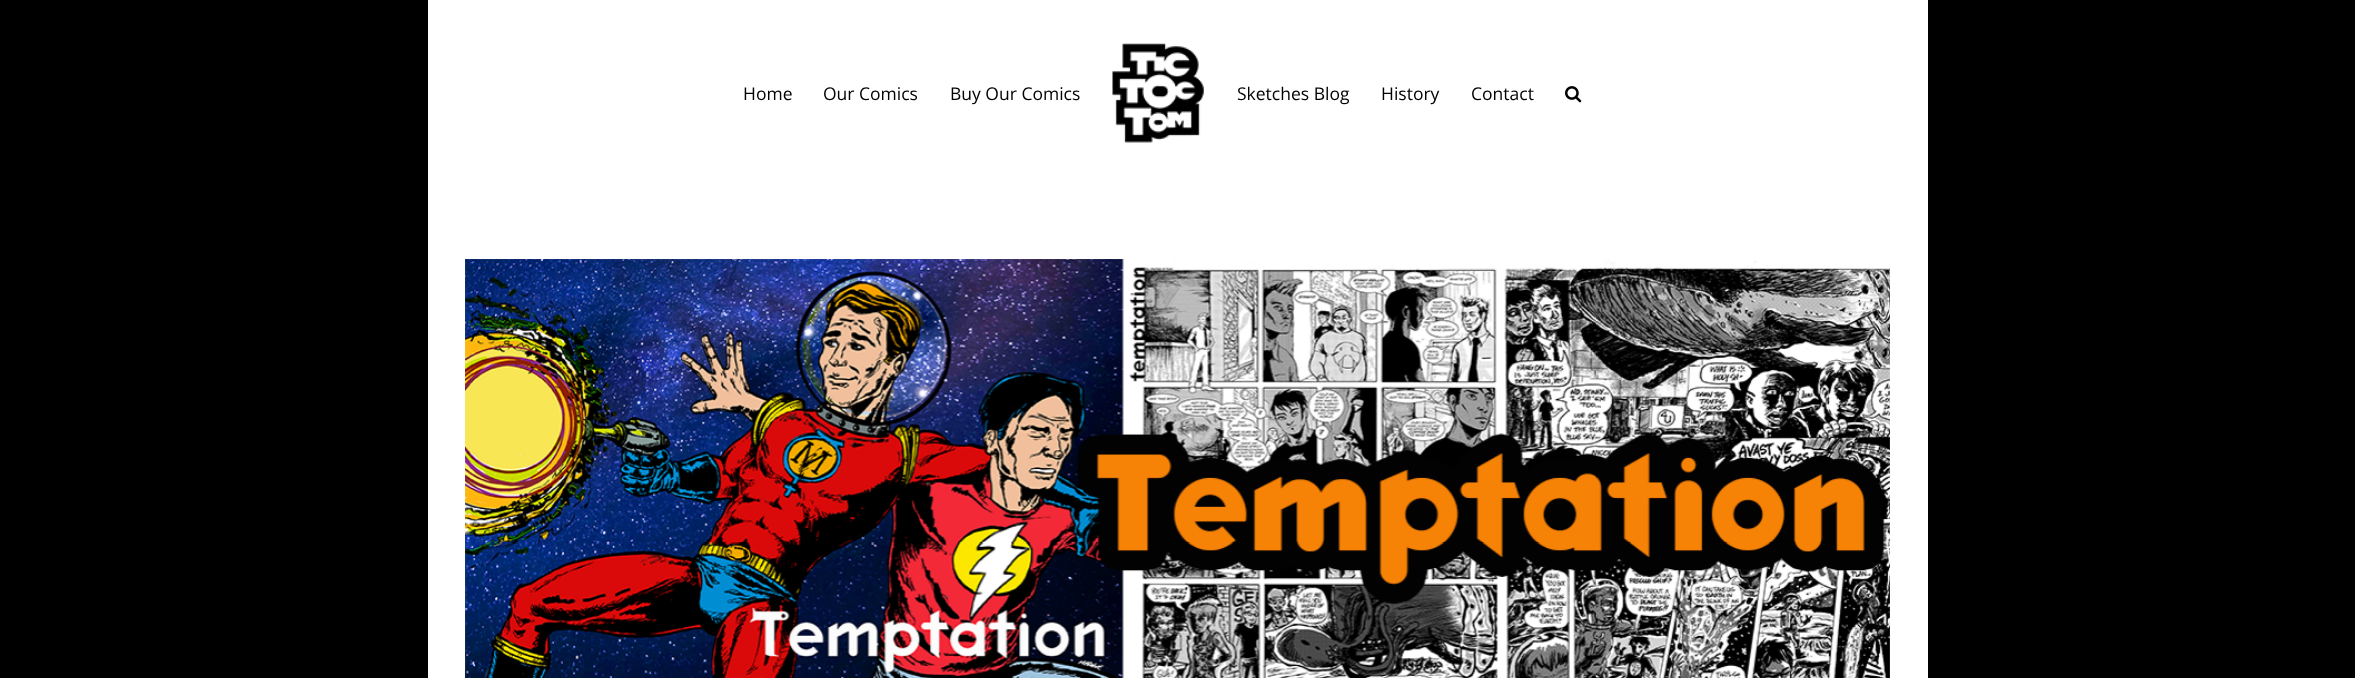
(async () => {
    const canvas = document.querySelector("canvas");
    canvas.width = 2355;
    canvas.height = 678;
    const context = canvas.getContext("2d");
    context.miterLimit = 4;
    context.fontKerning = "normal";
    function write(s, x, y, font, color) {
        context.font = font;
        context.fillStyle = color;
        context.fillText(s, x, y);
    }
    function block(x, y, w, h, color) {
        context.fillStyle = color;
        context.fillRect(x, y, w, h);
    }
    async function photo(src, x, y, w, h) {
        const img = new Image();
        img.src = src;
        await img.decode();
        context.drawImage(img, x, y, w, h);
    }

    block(0, 0, 2355, 678, "rgb(0, 0, 0)");
    block(428, 0, 1500, 678, "rgb(255, 255, 255)");
    await photo("media/1.png", 465, 259, 1425, 419);
    write("Home", 743, 100, "17.5px Open Sans", "rgb(0, 0, 0)");
    write("Our Comics", 823, 100, "17.5px Open Sans", "rgb(0, 0, 0)");
    write("Buy Our Comics", 950, 100, "17.5px Open Sans", "rgb(0, 0, 0)");
    await photo("media/2.png", 1112, 43, 92, 100);
    write("Sketches Blog", 1237, 100, "17.5px Open Sans", "rgb(0, 0, 0)");
    write("History", 1381, 100, "17.5px Open Sans", "rgb(0, 0, 0)");
    write("Contact", 1471, 100, "17.5px Open Sans", "rgb(0, 0, 0)");
    await photo("media/3.png", 1565, 86, 17, 17);
})();
